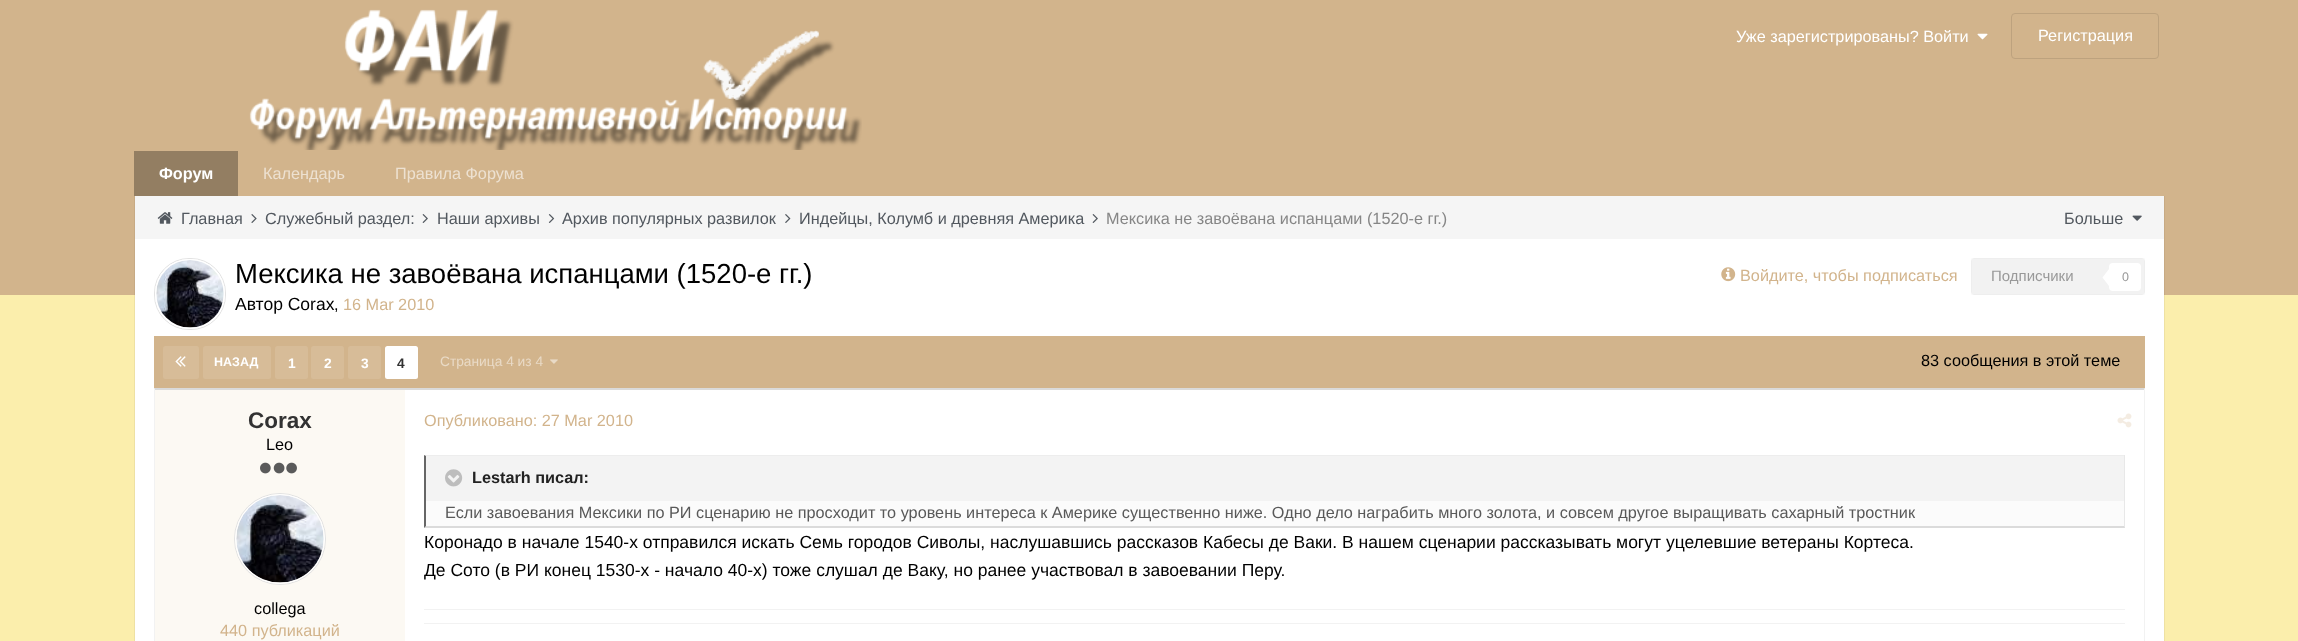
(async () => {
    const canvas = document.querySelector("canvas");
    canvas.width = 2298;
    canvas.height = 641;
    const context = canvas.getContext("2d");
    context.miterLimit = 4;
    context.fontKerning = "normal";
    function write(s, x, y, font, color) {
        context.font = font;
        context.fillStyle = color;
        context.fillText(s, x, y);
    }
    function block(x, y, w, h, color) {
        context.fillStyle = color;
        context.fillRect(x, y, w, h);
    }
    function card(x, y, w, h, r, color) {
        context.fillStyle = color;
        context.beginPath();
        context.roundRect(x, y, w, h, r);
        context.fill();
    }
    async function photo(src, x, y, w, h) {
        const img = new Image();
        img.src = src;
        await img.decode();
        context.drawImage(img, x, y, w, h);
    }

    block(0, 0, 2298, 641, "rgb(251, 238, 172)");
    block(0, 0, 2298, 295, "rgb(210, 180, 140)");
    await photo("media/1.png", 249, 9, 613, 141);
    write("Уже зарегистрированы? Войти", 1736, 42, "16.25px Liberation Sans", "rgb(255, 255, 255)");
    await photo("media/2.png", 1977, 33, 11, 7);
    context.beginPath();
    context.roundRect(2011.5, 13.5, 147, 45, 3.5);
    context.strokeStyle = "rgb(189, 162, 126)";
    context.stroke();
    write("Регистрация", 2038, 41, "16.25px Liberation Sans", "rgb(255, 255, 255)");
    block(134, 151, 104, 45, "rgb(147, 126, 98)");
    write("Форум", 159, 179, "bold 16.25px Liberation Sans", "rgb(255, 255, 255)");
    write("Календарь", 263, 179, "16.25px Liberation Sans", "rgb(237, 225, 209)");
    write("Правила Форума", 395, 179, "16.25px Liberation Sans", "rgb(237, 225, 209)");
    context.fillStyle = "rgba(0, 0, 0, 0.05)";
    context.beginPath();
    context.moveTo(2165, 196);
    context.lineTo(2165, 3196);
    context.lineTo(2164, 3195);
    context.lineTo(2164, 196);
    context.closePath();
    context.fill();
    context.beginPath();
    context.moveTo(134, 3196);
    context.lineTo(134, 196);
    context.lineTo(135, 196);
    context.lineTo(135, 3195);
    context.closePath();
    context.fill();
    block(135, 196, 2029, 43, "rgb(245, 245, 245)");
    await photo("media/3.png", 157, 212, 16, 12);
    write("Главная", 181, 224, "16.25px Liberation Sans", "rgb(82, 88, 95)");
    await photo("media/4.png", 251, 214, 6, 9);
    write("Служебный раздел:", 265, 224, "16.25px Liberation Sans", "rgb(82, 88, 95)");
    await photo("media/5.png", 422, 214, 6, 9);
    write("Наши архивы", 437, 224, "16.25px Liberation Sans", "rgb(82, 88, 95)");
    await photo("media/6.png", 548, 214, 7, 9);
    write("Архив популярных развилок", 562, 224, "16.25px Liberation Sans", "rgb(82, 88, 95)");
    await photo("media/7.png", 785, 214, 6, 9);
    write("Индейцы, Колумб и древняя Америка", 799, 224, "16.25px Liberation Sans", "rgb(82, 88, 95)");
    await photo("media/5.png", 1092, 214, 6, 9);
    write("Мексика не завоёвана испанцами (1520-е гг.)", 1106, 224, "16.25px Liberation Sans", "rgb(134, 134, 134)");
    write("Больше", 2064, 224, "16.25px Liberation Sans", "rgb(82, 88, 95)");
    await photo("media/8.png", 2132, 215, 10, 6);
    block(135, 239, 2029, 402, "rgb(255, 255, 255)");
    await photo("media/9.png", 156, 260, 68, 68);
    context.beginPath();
    context.roundRect(154.5, 258.5, 71, 71, 34.5);
    context.strokeStyle = "rgb(226, 226, 226)";
    context.stroke();
    context.beginPath();
    context.roundRect(155.5, 259.5, 69, 69, 33.5);
    context.strokeStyle = "rgb(255, 255, 255)";
    context.stroke();
    write("Мексика не завоёвана испанцами (1520-е гг.)", 235, 283, "27.5px Liberation Sans", "rgb(0, 0, 0)");
    write("Автор Corax", 235, 310, "17.5px Liberation Sans", "rgb(0, 0, 0)");
    write(",", 334, 310, "16.25px Liberation Sans", "rgb(0, 0, 0)");
    write("16 Mar 2010", 343, 310, "16.25px Liberation Sans", "rgb(210, 180, 140)");
    await photo("media/10.png", 1721, 267, 15, 15);
    write("Войдите, чтобы подписаться", 1740, 281, "16.25px Liberation Sans", "rgb(210, 180, 140)");
    card(1971, 258, 174, 37, 4, "rgb(242, 242, 242)");
    context.strokeStyle = "rgba(128, 128, 128, 0.03)";
    context.strokeRect(1971.5, 258.5, 173, 36);
    write("Подписчики", 1991, 281, "15px Liberation Sans", "rgb(153, 153, 153)");
    card(2109, 263, 32, 28, 4, "rgb(255, 255, 255)");
    context.beginPath();
    context.moveTo(2109, 269);
    context.lineTo(2109, 286);
    context.lineTo(2102.5, 277.5);
    context.closePath();
    context.fill();
    write("0", 2122, 281, "12.5px Liberation Sans", "rgb(153, 153, 153)");
    block(154, 336, 1991, 52, "rgb(210, 180, 140)");
    card(163, 346, 36, 33, 2.5, "rgb(215, 188, 152)");
    await photo("media/11.png", 175, 356, 11, 11);
    card(203, 346, 68, 33, 2.5, "rgb(215, 188, 152)");
    write("НАЗАД", 214, 366, "bold 12.5px Liberation Sans", "rgb(255, 255, 255)");
    card(275, 346, 33, 33, 2.5, "rgb(215, 188, 152)");
    write("1", 288, 368, "bold 13.75px Liberation Sans", "rgb(255, 255, 255)");
    card(311, 346, 33, 33, 2.5, "rgb(215, 188, 152)");
    write("2", 324, 368, "bold 13.75px Liberation Sans", "rgb(255, 255, 255)");
    card(348, 346, 33, 33, 2.5, "rgb(215, 188, 152)");
    write("3", 361, 368, "bold 13.75px Liberation Sans", "rgb(255, 255, 255)");
    card(385, 346, 33, 33, 2.5, "rgb(255, 255, 255)");
    write("4", 397, 368, "bold 13.75px Liberation Sans", "rgb(50, 50, 50)");
    write("Страница 4 из 4", 440, 366, "13.75px Liberation Sans", "rgb(233, 218, 198)");
    await photo("media/12.png", 550, 359, 8, 5);
    write("83 сообщения в этой теме", 1921, 366, "16.25px Liberation Sans", "rgb(0, 0, 0)");
    context.fillStyle = "rgb(218, 218, 218)";
    context.beginPath();
    context.moveTo(154, 388);
    context.lineTo(2145, 388);
    context.lineTo(2144, 390);
    context.lineTo(155, 390);
    context.closePath();
    context.fill();
    context.fillStyle = "rgb(242, 242, 242)";
    context.beginPath();
    context.moveTo(2145, 388);
    context.lineTo(2145, 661);
    context.lineTo(2144, 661);
    context.lineTo(2144, 390);
    context.closePath();
    context.fill();
    context.beginPath();
    context.moveTo(154, 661);
    context.lineTo(154, 388);
    context.lineTo(155, 390);
    context.lineTo(155, 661);
    context.closePath();
    context.fill();
    block(155, 390, 250, 251, "rgb(252, 249, 243)");
    write("Corax", 248, 428, "bold 22.5px Liberation Sans", "rgb(50, 50, 50)");
    write("Leo", 266, 450, "16.25px Liberation Sans", "rgb(0, 0, 0)");
    await photo("media/13.png", 260, 462, 11, 12);
    await photo("media/14.png", 273, 462, 12, 12);
    await photo("media/15.png", 286, 462, 11, 12);
    context.fillStyle = "rgb(255, 255, 255)";
    context.beginPath();
    context.arc(280, 539, 44, 0, Math.PI * 2);
    context.fill();
    await photo("media/16.png", 236, 495, 88, 88);
    context.beginPath();
    context.arc(280, 539, 45.5, 0, Math.PI * 2);
    context.strokeStyle = "rgb(226, 226, 226)";
    context.stroke();
    context.beginPath();
    context.arc(280, 539, 44.5, 0, Math.PI * 2);
    context.strokeStyle = "rgb(255, 255, 255)";
    context.stroke();
    write("collega", 254, 614, "16.25px Liberation Sans", "rgb(0, 0, 0)");
    write("440 публикаций", 220, 636, "16.25px Liberation Sans", "rgb(210, 180, 140)");
    write("Опубликовано: 27 Mar 2010", 424, 426, "16.25px Liberation Sans", "rgb(210, 180, 140)");
    await photo("media/17.png", 2117, 413, 15, 15);
    block(426, 501, 1698, 25, "rgb(251, 251, 251)");
    context.fillStyle = "rgb(237, 237, 237)";
    context.beginPath();
    context.moveTo(424, 455);
    context.lineTo(2125, 455);
    context.lineTo(2124, 456);
    context.lineTo(426, 456);
    context.closePath();
    context.fill();
    block(2124, 455, 1, 73, "rgb(232, 232, 232)");
    context.fillStyle = "rgb(219, 219, 219)";
    context.beginPath();
    context.moveTo(2125, 528);
    context.lineTo(424, 528);
    context.lineTo(426, 526);
    context.lineTo(2124, 526);
    context.closePath();
    context.fill();
    context.fillStyle = "rgb(102, 102, 102)";
    context.beginPath();
    context.moveTo(424, 528);
    context.lineTo(424, 455);
    context.lineTo(426, 456);
    context.lineTo(426, 526);
    context.closePath();
    context.fill();
    block(426, 456, 1698, 45, "rgb(243, 243, 243)");
    await photo("media/18.png", 445, 469, 18, 18);
    write("Lestarh писал:", 472, 483, "bold 16.25px Liberation Sans", "rgb(34, 34, 34)");
    write("Если завоевания Мексики по РИ сценарию не просходит то уровень интереса к Америке существенно ниже. Одно дело награбить много золота, и совсем другое выращивать сахарный тростник", 445, 518, "16.25px Liberation Sans", "rgb(89, 89, 89)");
    write("Коронадо в начале 1540-х отправился искать Семь городов Сиволы, наслушавшись рассказов Кабесы де Ваки. В нашем сценарии рассказывать могут уцелевшие ветераны Кортеса.", 424, 548, "17.5px Liberation Sans", "rgb(0, 0, 0)");
    write("Де Сото (в РИ конец 1530-х - начало 40-х) тоже слушал де Ваку, но ранее участвовал в завоевании Перу.", 424, 576, "17.5px Liberation Sans", "rgb(0, 0, 0)");
    block(424, 609, 1701, 1, "rgb(242, 242, 242)");
    block(424, 623, 1701, 1, "rgb(242, 242, 242)");
})();
